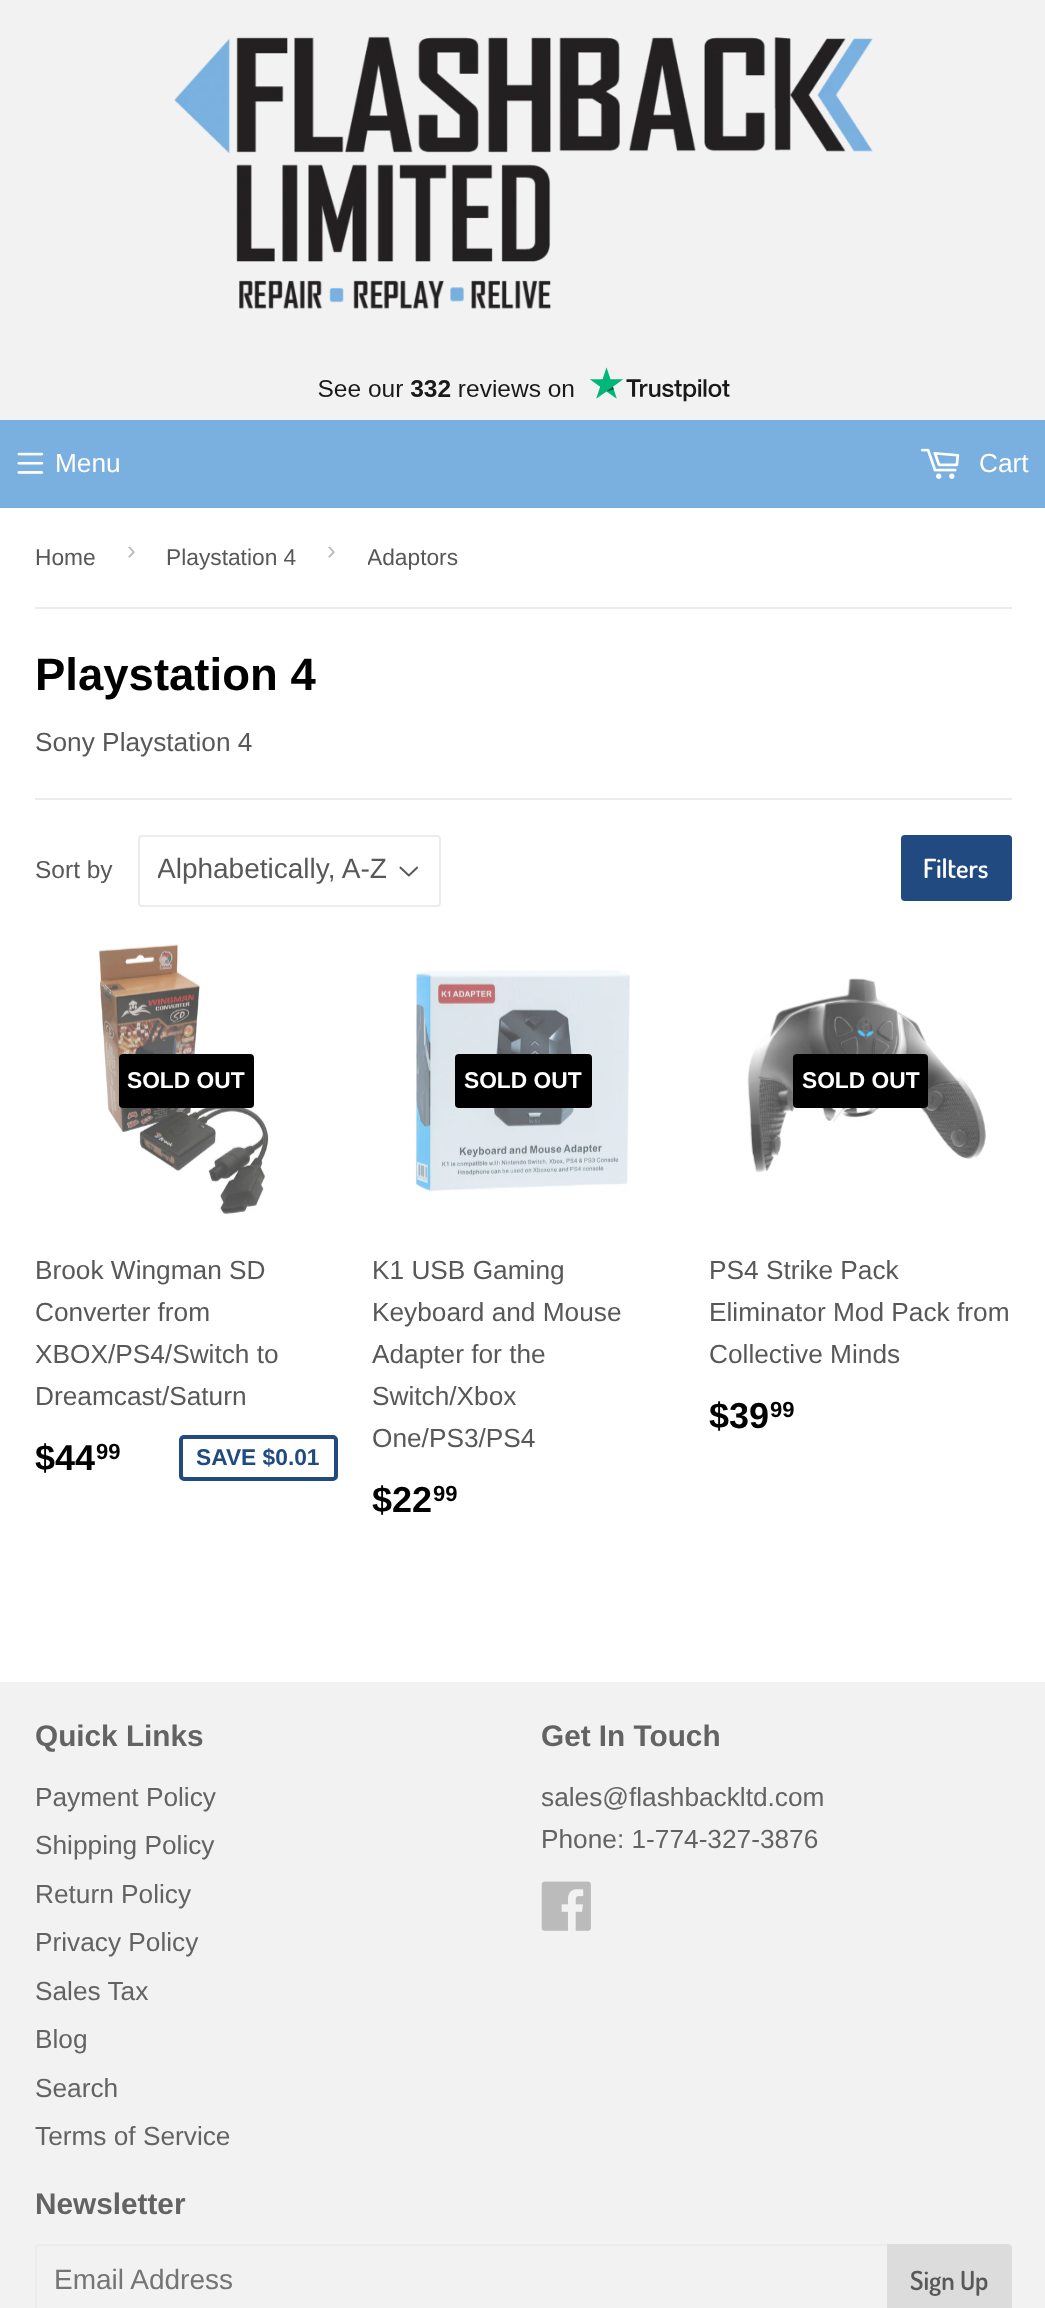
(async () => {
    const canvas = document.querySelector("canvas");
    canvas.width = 1045;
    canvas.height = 2308;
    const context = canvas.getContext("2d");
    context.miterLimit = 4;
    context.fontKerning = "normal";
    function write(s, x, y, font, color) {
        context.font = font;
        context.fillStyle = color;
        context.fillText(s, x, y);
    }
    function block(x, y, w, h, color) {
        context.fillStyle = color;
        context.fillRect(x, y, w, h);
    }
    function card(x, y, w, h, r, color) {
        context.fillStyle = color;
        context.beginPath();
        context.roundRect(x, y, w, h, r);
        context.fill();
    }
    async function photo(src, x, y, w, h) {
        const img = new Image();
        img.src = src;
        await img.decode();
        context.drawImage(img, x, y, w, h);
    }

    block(0, 0, 1045, 2308, "rgb(255, 255, 255)");
    block(0, 0, 1045, 420, "rgb(242, 242, 242)");
    await photo("media/1.png", 174, 36, 699, 273);
    await photo("media/2.png", 318, 367, 412, 35);
    block(0, 420, 1045, 88, "rgb(121, 176, 223)");
    await photo("media/3.png", 17, 452, 27, 22);
    write("Menu", 55, 472, "26.25px Liberation Sans", "rgb(255, 255, 255)");
    await photo("media/4.png", 920, 448, 40, 31);
    write("Cart", 979, 472, "26.25px Liberation Sans", "rgb(255, 255, 255)");
    block(35, 607, 977, 2, "rgb(236, 236, 236)");
    write("Home", 35, 565, "22.75px Liberation Sans", "rgb(88, 88, 88)");
    write("›", 127, 559, "26.25px Liberation Sans", "rgb(187, 187, 187)");
    write("Playstation 4", 166, 565, "22.75px Liberation Sans", "rgb(88, 88, 88)");
    write("›", 327, 559, "26.25px Liberation Sans", "rgb(187, 187, 187)");
    context.save();
    context.beginPath();
    context.rect(368, 523, 103, 72);
    context.clip();
    write("Adaptors", 367, 565, "22.75px Liberation Sans", "rgb(88, 88, 88)");
    context.restore();
    write("Playstation 4", 35, 690, "bold 45.5px Liberation Sans", "rgb(0, 0, 0)");
    write("Sony Playstation 4", 35, 751, "26.25px Liberation Sans", "rgb(88, 88, 88)");
    block(35, 798, 977, 2, "rgb(236, 236, 236)");
    write("Sort by", 35, 878, "24.5px Liberation Sans", "rgb(88, 88, 88)");
    await photo("media/5.png", 399, 866, 19, 11);
    context.beginPath();
    context.roundRect(139, 836, 301, 70, 3);
    context.strokeStyle = "rgb(236, 236, 236)";
    context.lineWidth = 2;
    context.stroke();
    context.save();
    context.beginPath();
    context.rect(158, 851, 232, 40);
    context.clip();
    write("Alphabetically, A-Z", 157, 878, "28px Liberation Sans", "rgb(88, 88, 88)");
    context.restore();
    card(901, 835, 111, 66, 4, "rgb(32, 74, 128)");
    write("Filters", 923, 878, "600 26.25px Dosis", "rgb(255, 255, 255)");
    await photo("media/6.png", 96, 944, 173, 270);
    card(119, 1054, 135, 54, 4, "rgb(0, 0, 0)");
    write("SOLD OUT", 127, 1088, "bold 22.75px Liberation Sans", "rgb(255, 255, 255)");
    write("Brook Wingman SD", 35, 1279, "26.25px Liberation Sans", "rgb(88, 88, 88)");
    write("Converter from", 35, 1321, "26.25px Liberation Sans", "rgb(88, 88, 88)");
    write("XBOX/PS4/Switch to", 35, 1363, "26.25px Liberation Sans", "rgb(88, 88, 88)");
    write("Dreamcast/Saturn", 35, 1405, "26.25px Liberation Sans", "rgb(88, 88, 88)");
    write("$44", 35, 1470, "bold 36px Liberation Sans", "rgb(0, 0, 0)");
    write("99", 96, 1459, "bold 22px Liberation Sans", "rgb(0, 0, 0)");
    context.beginPath();
    context.roundRect(181, 1437, 155, 42, 3);
    context.strokeStyle = "rgb(32, 74, 128)";
    context.lineWidth = 4;
    context.stroke();
    write("SAVE $0.01", 196, 1465, "bold 22.75px Liberation Sans", "rgb(32, 74, 128)");
    await photo("media/7.png", 413, 970, 218, 222);
    card(455, 1054, 137, 54, 4, "rgb(0, 0, 0)");
    write("SOLD OUT", 464, 1088, "bold 22.75px Liberation Sans", "rgb(255, 255, 255)");
    write("K1 USB Gaming", 372, 1279, "26.25px Liberation Sans", "rgb(88, 88, 88)");
    write("Keyboard and Mouse", 372, 1321, "26.25px Liberation Sans", "rgb(88, 88, 88)");
    write("Adapter for the", 372, 1363, "26.25px Liberation Sans", "rgb(88, 88, 88)");
    write("Switch/Xbox", 372, 1405, "26.25px Liberation Sans", "rgb(88, 88, 88)");
    write("One/PS3/PS4", 372, 1447, "26.25px Liberation Sans", "rgb(88, 88, 88)");
    write("$22", 372, 1512, "bold 36px Liberation Sans", "rgb(0, 0, 0)");
    write("99", 433, 1501, "bold 22px Liberation Sans", "rgb(0, 0, 0)");
    await photo("media/8.png", 747, 978, 239, 195);
    card(793, 1054, 135, 54, 4, "rgb(0, 0, 0)");
    write("SOLD OUT", 802, 1088, "bold 22.75px Liberation Sans", "rgb(255, 255, 255)");
    write("PS4 Strike Pack", 709, 1279, "26.25px Liberation Sans", "rgb(88, 88, 88)");
    write("Eliminator Mod Pack from", 709, 1321, "26.25px Liberation Sans", "rgb(88, 88, 88)");
    write("Collective Minds", 709, 1363, "26.25px Liberation Sans", "rgb(88, 88, 88)");
    write("$39", 709, 1428, "bold 36px Liberation Sans", "rgb(0, 0, 0)");
    write("99", 770, 1417, "bold 22px Liberation Sans", "rgb(0, 0, 0)");
    block(0, 1682, 1045, 626, "rgb(242, 242, 242)");
    write("Quick Links", 35, 1746, "bold 29.75px Liberation Sans", "rgb(99, 99, 99)");
    write("Payment Policy", 35, 1806, "26.25px Liberation Sans", "rgb(99, 99, 99)");
    write("Shipping Policy", 35, 1854, "26.25px Liberation Sans", "rgb(99, 99, 99)");
    write("Return Policy", 35, 1903, "26.25px Liberation Sans", "rgb(99, 99, 99)");
    write("Privacy Policy", 35, 1951, "26.25px Liberation Sans", "rgb(99, 99, 99)");
    write("Sales Tax", 35, 2000, "26.25px Liberation Sans", "rgb(99, 99, 99)");
    write("Blog", 35, 2048, "26.25px Liberation Sans", "rgb(99, 99, 99)");
    write("Search", 35, 2097, "26.25px Liberation Sans", "rgb(99, 99, 99)");
    write("Terms of Service", 35, 2145, "26.25px Liberation Sans", "rgb(99, 99, 99)");
    write("Get In Touch", 541, 1746, "bold 29.75px Liberation Sans", "rgb(99, 99, 99)");
    write("sales@flashbackltd.com", 541, 1806, "26.25px Liberation Sans", "rgb(99, 99, 99)");
    write("Phone: 1-774-327-3876", 541, 1848, "26.25px Liberation Sans", "rgb(99, 99, 99)");
    await photo("media/9.png", 541, 1881, 50, 50);
    write("Newsletter", 35, 2214, "bold 29.75px Liberation Sans", "rgb(99, 99, 99)");
    block(37, 2244, 850, 2, "rgb(236, 236, 236)");
    block(35, 2245, 2, 63, "rgb(236, 236, 236)");
    write("Email Address", 54, 2289, "28px Liberation Sans", "rgb(117, 117, 117)");
    context.fillStyle = "rgb(220, 220, 220)";
    context.beginPath();
    context.moveTo(887, 2244);
    context.lineTo(1008, 2244);
    context.bezierCurveTo(1010, 2244, 1012, 2246, 1012, 2248);
    context.lineTo(1012, 2308);
    context.bezierCurveTo(1012, 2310, 1010, 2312, 1008, 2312);
    context.lineTo(887, 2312);
    context.closePath();
    context.fill();
    write("Sign Up", 910, 2290, "600 26.25px Dosis", "rgb(88, 88, 88)");
})();
